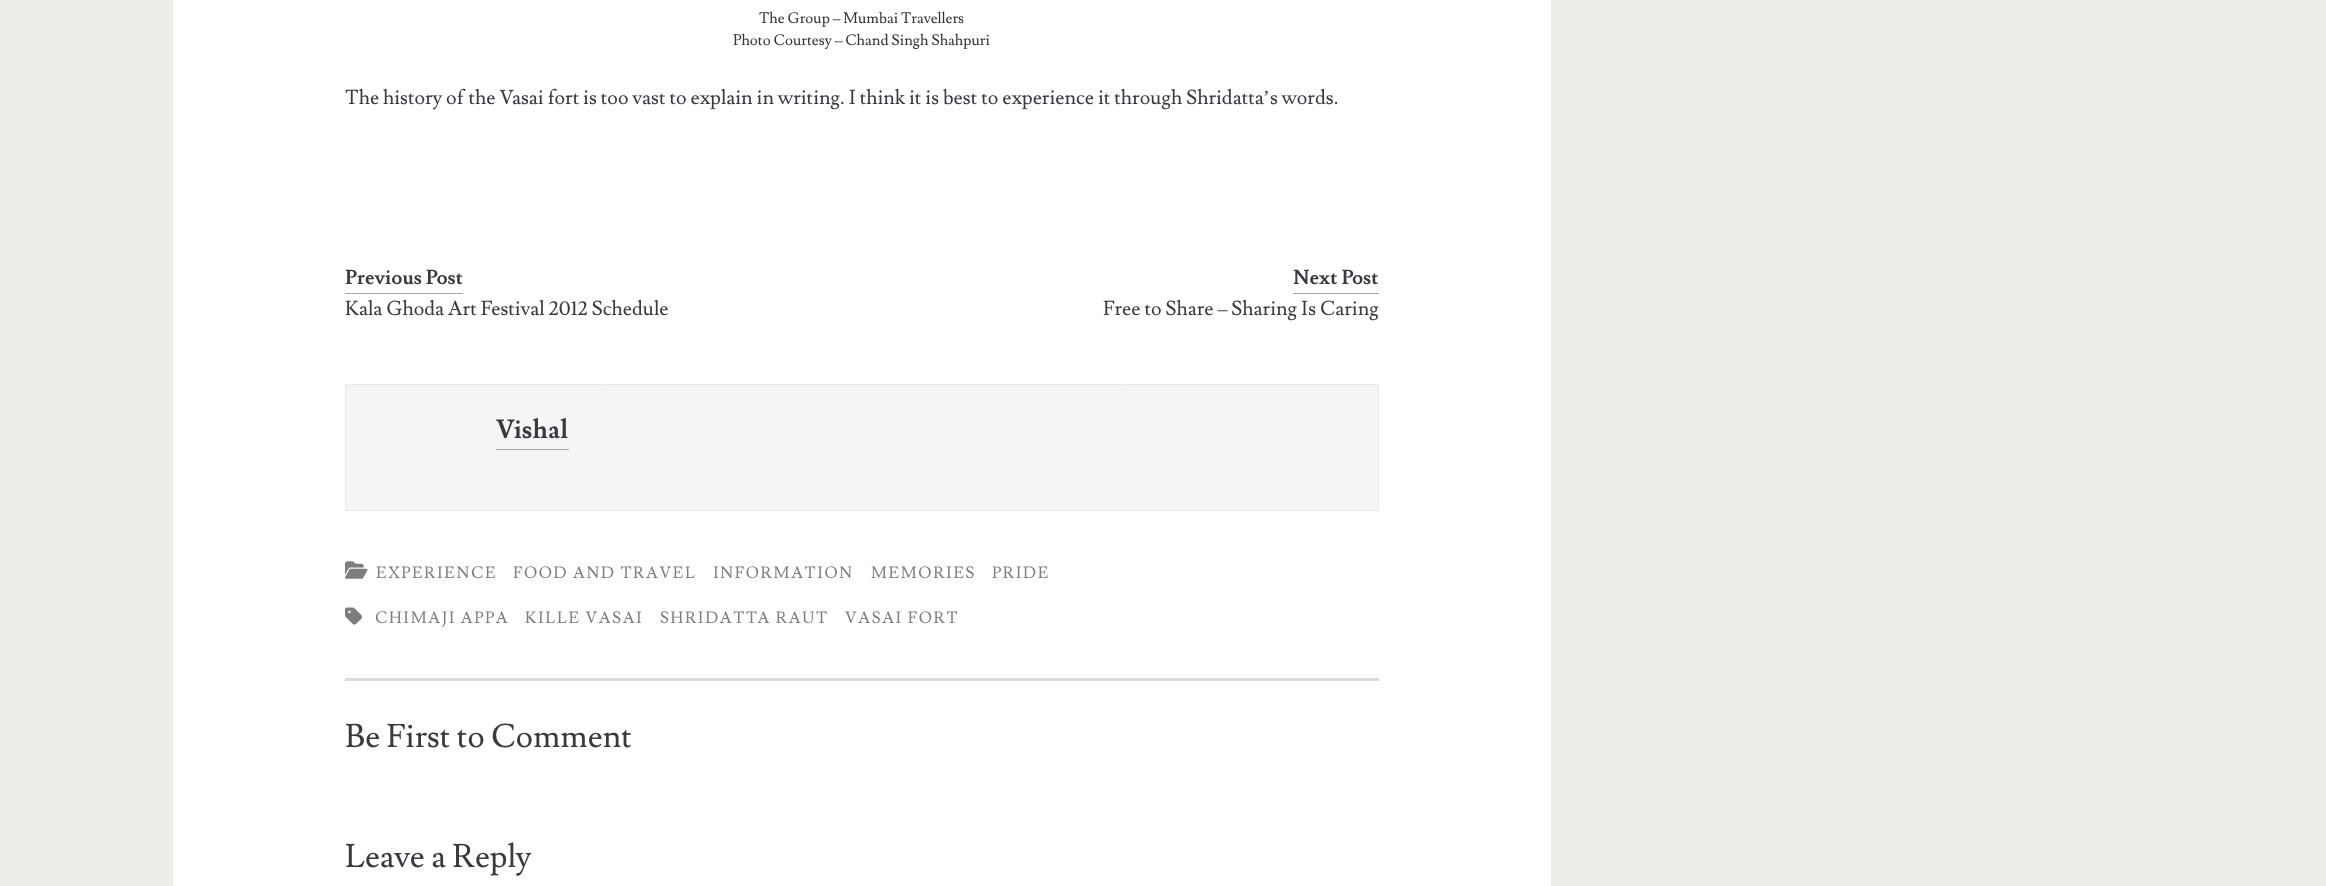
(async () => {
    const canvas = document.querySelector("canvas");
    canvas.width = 2326;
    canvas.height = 886;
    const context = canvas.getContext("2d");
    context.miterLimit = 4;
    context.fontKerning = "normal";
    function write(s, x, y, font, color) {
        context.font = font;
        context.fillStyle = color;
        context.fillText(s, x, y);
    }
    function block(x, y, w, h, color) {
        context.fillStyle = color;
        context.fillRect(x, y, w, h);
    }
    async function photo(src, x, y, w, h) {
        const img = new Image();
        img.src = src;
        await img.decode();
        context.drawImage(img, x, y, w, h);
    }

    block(0, 0, 2326, 886, "rgb(238, 237, 232)");
    block(173, 0, 1378, 886, "rgb(255, 255, 255)");
    write("The Group – Mumbai Travellers", 759, 23, "15px Lusitana", "rgb(48, 51, 56)");
    write("Photo Courtesy – Chand Singh Shahpuri", 733, 45, "15px Lusitana", "rgb(48, 51, 56)");
    write("The history of the Vasai fort is too vast to explain in writing. I think it is best to experience it through Shridatta", 345, 104, "20px Lusitana", "rgb(55, 59, 65)");
    write("’", 1263, 104, "20px Liberation Serif", "rgb(55, 59, 65)");
    write("s words.", 1270, 104, "20px Lusitana", "rgb(55, 59, 65)");
    block(345, 293, 118, 1, "rgb(230, 161, 23)");
    write("Previous Post", 345, 284, "bold 20px Lusitana", "rgb(55, 59, 65)");
    write("Kala Ghoda Art Festival 2012 Schedule", 345, 315, "20px Lusitana", "rgb(55, 59, 65)");
    block(1293, 293, 86, 1, "rgb(230, 161, 23)");
    write("Next Post", 1293, 284, "bold 20px Lusitana", "rgb(55, 59, 65)");
    write("Free to Share – Sharing Is Caring", 1103, 315, "20px Lusitana", "rgb(55, 59, 65)");
    context.fillStyle = "rgb(245, 245, 245)";
    context.beginPath();
    context.rect(345.5, 384.5, 1033, 126);
    context.fill();
    context.strokeStyle = "rgb(232, 234, 238)";
    context.stroke();
    block(496, 449, 73, 1, "rgb(230, 161, 23)");
    write("Vishal", 496, 438, "bold 26px Lusitana", "rgb(55, 59, 65)");
    await photo("media/1.png", 345, 561, 23, 18);
    context.letterSpacing = "1.6px";
    write("EXPERIENCE", 376, 578, "16.25px Lusitana", "rgb(124, 125, 127)");
    write("FOOD AND TRAVEL", 513, 578, "16.25px Lusitana", "rgb(124, 125, 127)");
    write("INFORMATION", 713, 578, "16.25px Lusitana", "rgb(124, 125, 127)");
    write("MEMORIES", 871, 578, "16.25px Lusitana", "rgb(124, 125, 127)");
    write("PRIDE", 992, 578, "16.25px Lusitana", "rgb(124, 125, 127)");
    await photo("media/2.png", 345, 607, 17, 18);
    write("CHIMAJI APPA", 375, 623, "16.25px Lusitana", "rgb(124, 125, 127)");
    write("KILLE VASAI", 525, 623, "16.25px Lusitana", "rgb(124, 125, 127)");
    write("SHRIDATTA RAUT", 660, 623, "16.25px Lusitana", "rgb(124, 125, 127)");
    write("VASAI FORT", 845, 623, "16.25px Lusitana", "rgb(124, 125, 127)");
    block(345, 678, 1034, 3, "rgb(217, 220, 223)");
    context.letterSpacing = "0px";
    write("Be First to Comment", 345, 747, "32.5px Lusitana", "rgb(55, 59, 65)");
    write("Leave a Reply", 345, 867, "32.5px Lusitana", "rgb(55, 59, 65)");
})();
